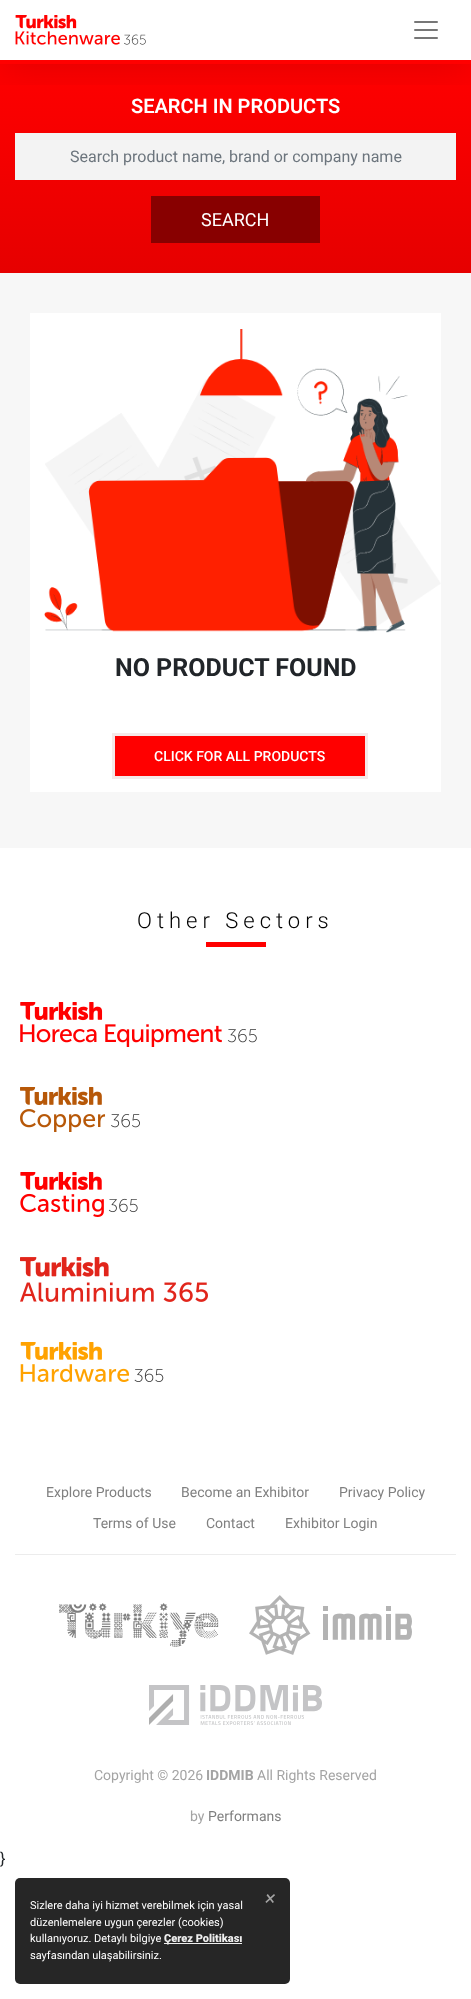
(async () => {
    const canvas = document.querySelector("canvas");
    canvas.width = 471;
    canvas.height = 1999;
    const context = canvas.getContext("2d");
    context.miterLimit = 4;
    context.fontKerning = "normal";
    function write(s, x, y, font, color) {
        context.font = font;
        context.fillStyle = color;
        context.fillText(s, x, y);
    }
    function block(x, y, w, h, color) {
        context.fillStyle = color;
        context.fillRect(x, y, w, h);
    }
    function card(x, y, w, h, r, color) {
        context.fillStyle = color;
        context.beginPath();
        context.roundRect(x, y, w, h, r);
        context.fill();
    }
    async function photo(src, x, y, w, h) {
        const img = new Image();
        img.src = src;
        await img.decode();
        context.drawImage(img, x, y, w, h);
    }
    let gradient;

    block(0, 0, 471, 1999, "rgb(255, 255, 255)");
    gradient = context.createLinearGradient(236, 64, 236, 273);
    gradient.addColorStop(0, "rgb(255, 0, 0)");
    gradient.addColorStop(1, "rgb(230, 0, 0)");
    context.fillStyle = gradient;
    context.fillRect(0, 64, 471, 209);
    context.save();
    context.beginPath();
    context.rect(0, 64, 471, 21);
    context.clip();
    context.fillStyle = "rgba(0, 0, 0, 0.15)";
    context.filter = "blur(20px)";
    context.beginPath();
    context.rect(0, 3, 471, 60);
    context.fill();
    context.filter = "none";
    context.restore();
    await photo("media/1.png", 15, 15, 131, 30);
    card(414, 29, 24, 2, 1, "rgb(119, 119, 119)");
    card(414, 21, 24, 2, 1, "rgb(119, 119, 119)");
    card(414, 37, 24, 2, 1, "rgb(119, 119, 119)");
    block(0, 60, 471, 4, "rgb(255, 0, 0)");
    write("SEARCH IN PRODUCTS", 131, 113, "600 20px Roboto", "rgb(255, 255, 255)");
    block(15, 133, 441, 47, "rgb(243, 243, 243)");
    write("Search product name, brand or company name", 70, 162, "16px Roboto", "rgb(108, 117, 125)");
    block(151, 196, 169, 47, "rgb(136, 0, 0)");
    write("SEARCH", 201, 226, "18px Roboto", "rgb(255, 255, 255)");
    block(0, 273, 471, 575, "rgb(247, 247, 247)");
    block(30, 313, 411, 479, "rgb(255, 255, 255)");
    await photo("media/2.png", 44, 329, 397, 304);
    write("NO PRODUCT FOUND", 115, 676, "bold 25px Roboto", "rgb(33, 37, 41)");
    context.strokeStyle = "rgb(245, 233, 233)";
    context.lineWidth = 3;
    context.strokeRect(113.5, 734.5, 253, 43);
    block(115, 736, 250, 40, "rgb(255, 0, 0)");
    write("CLICK FOR ALL PRODUCTS", 154, 761, "500 14px Roboto", "rgb(255, 255, 255)");
    context.letterSpacing = "5px";
    write("Other Sectors", 137, 928, "300 22px Roboto", "rgb(0, 0, 0)");
    block(206, 942, 60, 5, "rgb(255, 0, 0)");
    await photo("media/3.png", 20, 1002, 237, 45);
    await photo("media/4.png", 20, 1087, 120, 45);
    await photo("media/5.png", 20, 1172, 118, 45);
    await photo("media/6.png", 20, 1257, 188, 45);
    await photo("media/7.png", 20, 1342, 144, 40);
    block(15, 1554, 441, 1, "rgb(236, 236, 236)");
    context.letterSpacing = "0px";
    write("Explore Products", 46, 1497, "14px Roboto", "rgb(128, 128, 128)");
    write("Become an Exhibitor", 181, 1497, "14px Roboto", "rgb(128, 128, 128)");
    write("Privacy Policy", 339, 1497, "14px Roboto", "rgb(128, 128, 128)");
    write("Terms of Use", 93, 1528, "14px Roboto", "rgb(128, 128, 128)");
    write("Contact", 206, 1528, "14px Roboto", "rgb(128, 128, 128)");
    write("Exhibitor Login", 285, 1528, "14px Roboto", "rgb(128, 128, 128)");
    await photo("media/8.png", 59, 1603, 160, 44);
    await photo("media/9.png", 249, 1595, 163, 60);
    await photo("media/10.png", 149, 1685, 173, 40);
    write("Copyright © 2026", 94, 1780, "14px Roboto", "rgb(164, 164, 164)");
    write("IDDMIB", 206, 1780, "bold 14px Roboto", "rgb(164, 164, 164)");
    write("All Rights Reserved", 257, 1780, "14px Roboto", "rgb(164, 164, 164)");
    write("by", 190, 1821, "14px Roboto", "rgb(164, 164, 164)");
    write("Performans", 208, 1821, "14px Roboto", "rgb(128, 128, 128)");
    write("}", 0, 1864, "16px Roboto", "rgb(33, 37, 41)");
    card(15, 1878, 275, 106, 5, "rgb(38, 38, 38)");
    write("×", 265, 1905, "italic 20px Roboto", "rgb(164, 164, 164)");
    write("Sizlere daha iyi hizmet verebilmek için yasal", 30, 1909, "11px Roboto", "rgb(255, 255, 255)");
    write("düzenlemelere uygun çerezler (cookies)", 30, 1926, "11px Roboto", "rgb(255, 255, 255)");
    write("kullanıyoruz. Detaylı bilgiye", 30, 1942, "11px Roboto", "rgb(255, 255, 255)");
    block(164, 1943, 78, 1, "rgb(238, 238, 238)");
    write("Çerez Politikası", 164, 1942, "900 11px Roboto", "rgb(238, 238, 238)");
    write("sayfasından ulaşabilirsiniz.", 30, 1959, "11px Roboto", "rgb(255, 255, 255)");
})();
